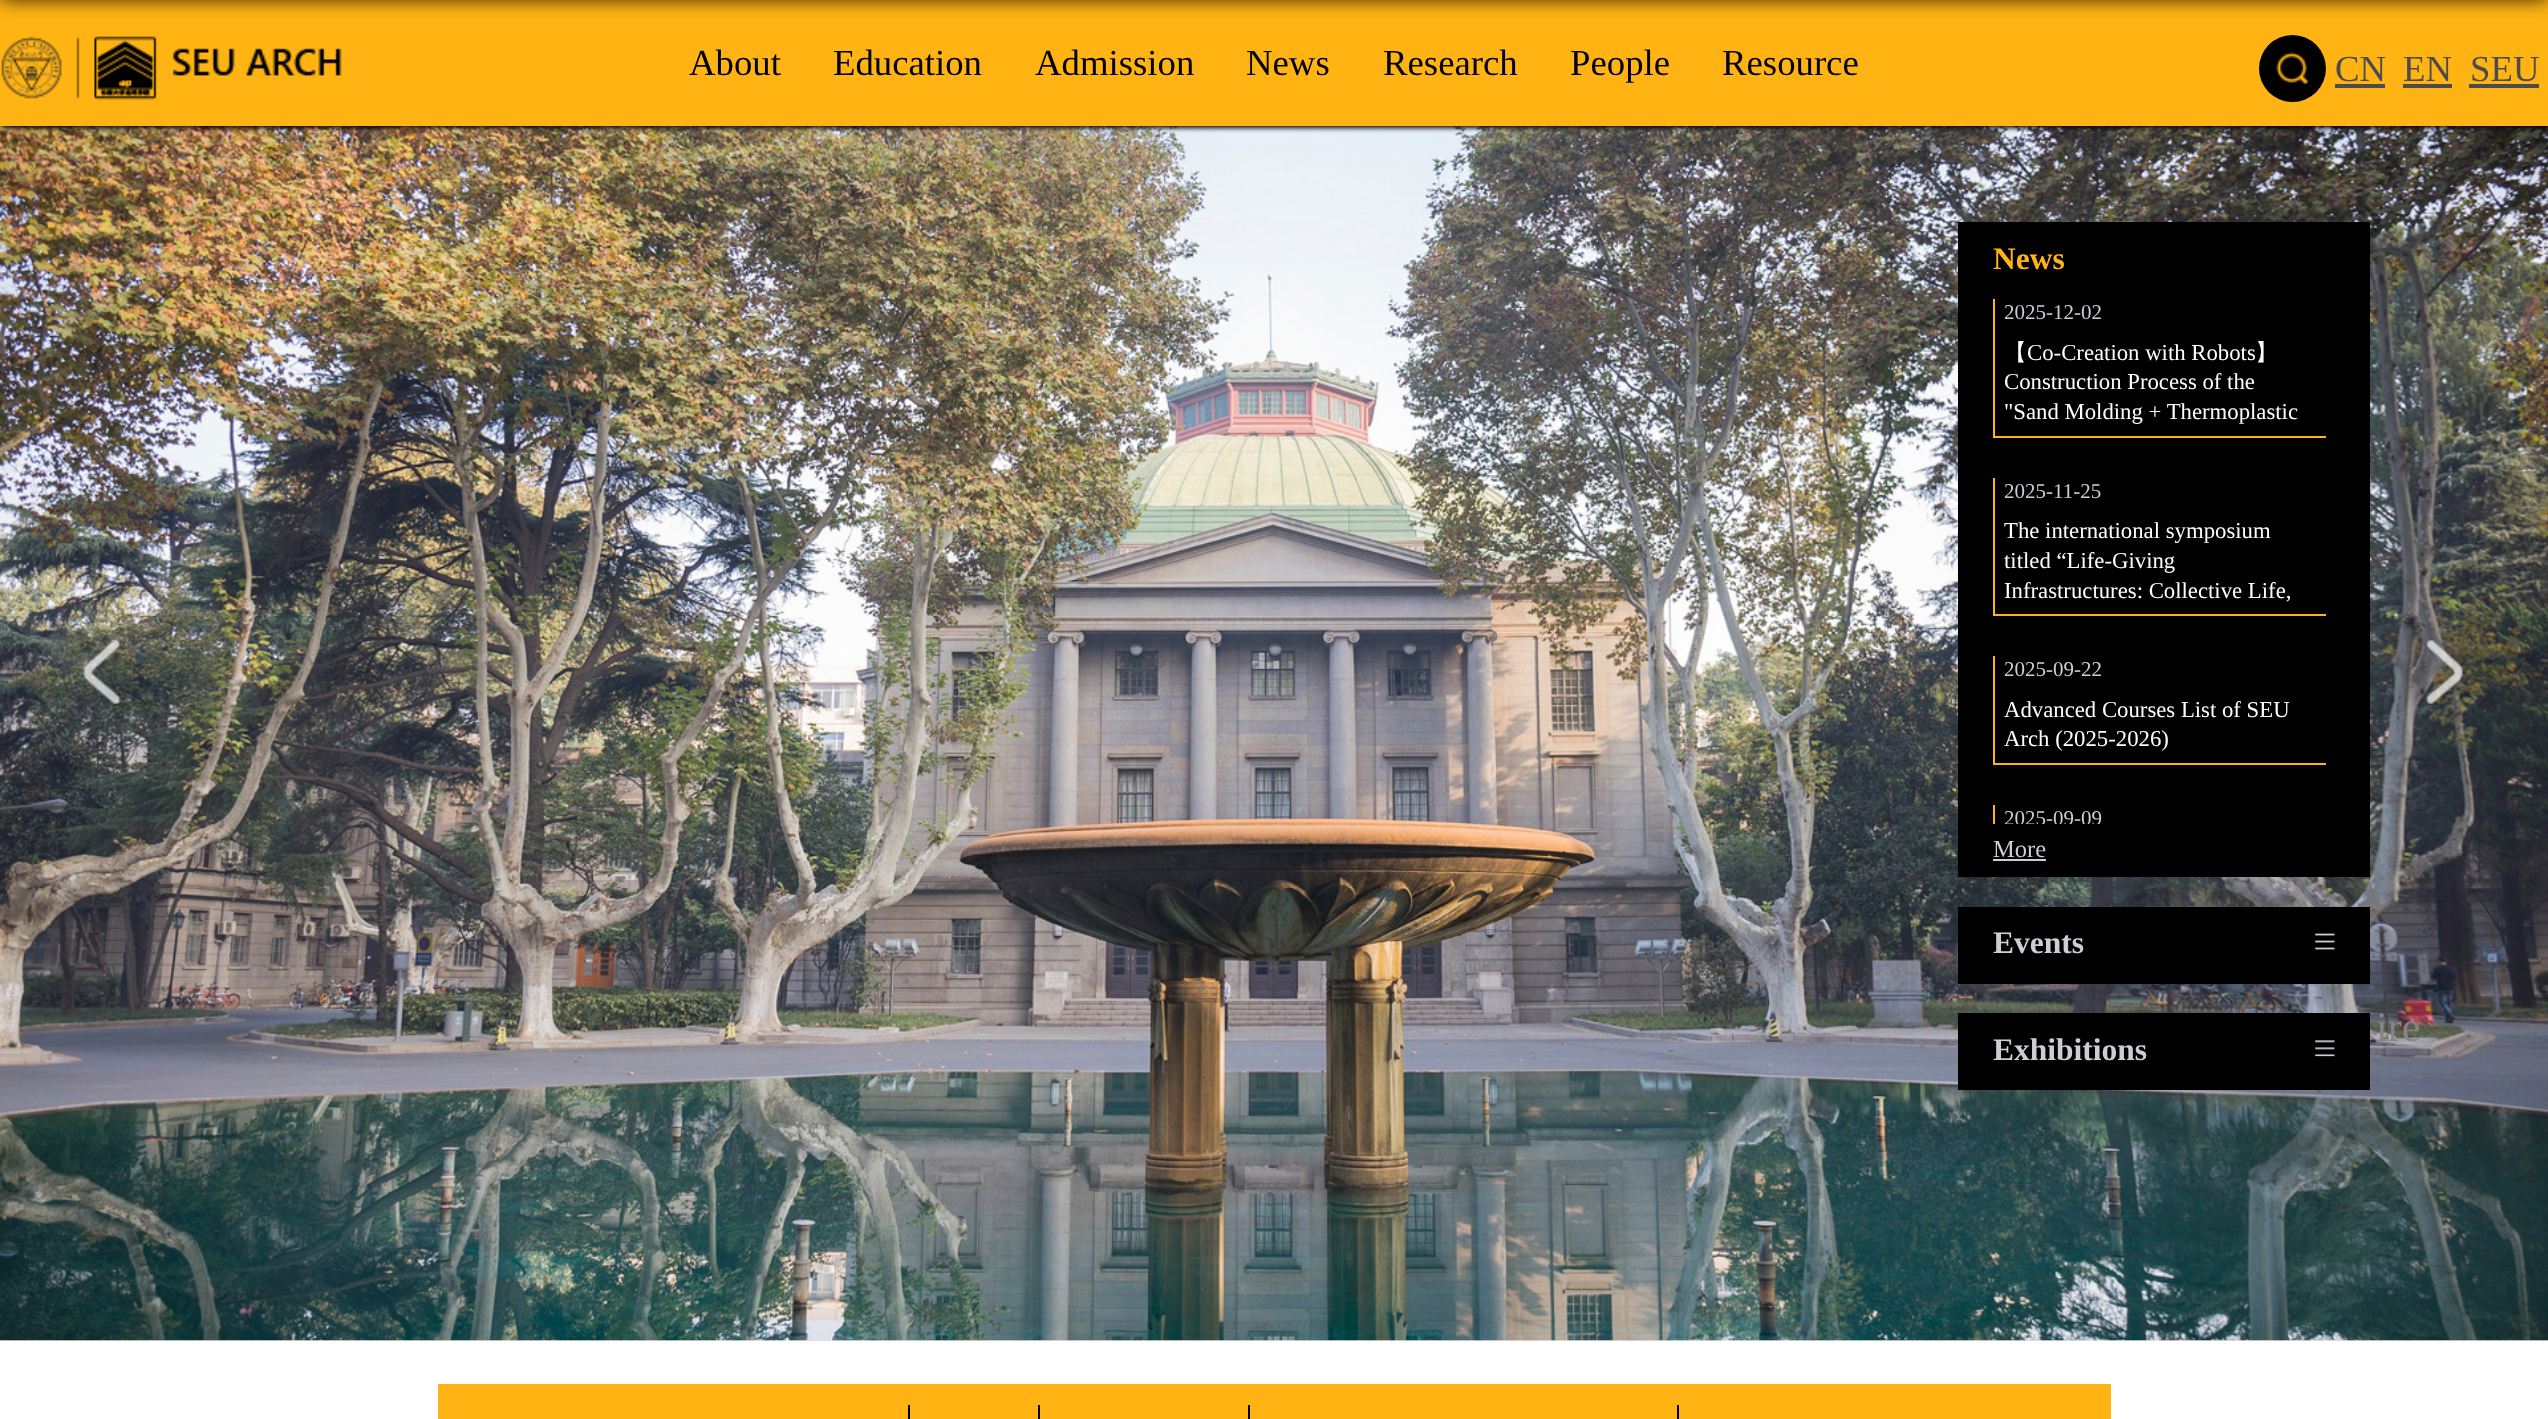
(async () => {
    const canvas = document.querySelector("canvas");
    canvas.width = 2548;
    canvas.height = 1419;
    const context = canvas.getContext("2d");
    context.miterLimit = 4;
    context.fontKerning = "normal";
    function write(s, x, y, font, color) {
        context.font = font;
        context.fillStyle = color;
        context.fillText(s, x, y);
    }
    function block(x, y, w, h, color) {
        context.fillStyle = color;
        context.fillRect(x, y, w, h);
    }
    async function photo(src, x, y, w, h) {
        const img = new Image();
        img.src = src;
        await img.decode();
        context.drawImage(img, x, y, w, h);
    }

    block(0, 0, 2548, 1419, "rgb(255, 255, 255)");
    block(0, 1340, 2548, 1, "rgb(231, 226, 223)");
    await photo("media/3.png", 0, 126, 2548, 1215);
    context.fillStyle = "rgb(0, 0, 0)";
    context.filter = "blur(2.5px)";
    context.beginPath();
    context.rect(2, 2, 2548, 126);
    context.fill();
    context.filter = "none";
    block(0, 0, 2548, 126, "rgb(255, 180, 20)");
    context.fillStyle = "rgba(0, 0, 0, 0.8)";
    context.filter = "blur(9px)";
    context.beginPath();
    context.rect(0, -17, 2548, 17);
    context.fill();
    context.filter = "none";
    await photo("media/1.png", 1, 36, 341, 65);
    write("About", 689, 75, "36.75px Liberation Serif", "rgb(0, 0, 0)");
    write("Education", 833, 75, "36.75px Liberation Serif", "rgb(0, 0, 0)");
    write("Admission", 1035, 75, "36.75px Liberation Serif", "rgb(0, 0, 0)");
    write("News", 1246, 75, "36.75px Liberation Serif", "rgb(0, 0, 0)");
    write("Research", 1383, 75, "36.75px Liberation Serif", "rgb(0, 0, 0)");
    write("People", 1570, 75, "36.75px Liberation Serif", "rgb(0, 0, 0)");
    write("Resource", 1722, 75, "36.75px Liberation Serif", "rgb(0, 0, 0)");
    context.beginPath();
    context.arc(2292.5, 68.5, 33.5, 0, Math.PI * 2);
    context.fill();
    await photo("media/2.png", 2276, 52, 33, 32);
    write("CN", 2335, 81, "36.75px Liberation Serif", "rgb(75, 75, 75)");
    block(2335, 84, 50, 4, "rgb(75, 75, 75)");
    write("EN", 2403, 81, "36.75px Liberation Serif", "rgb(75, 75, 75)");
    block(2403, 84, 49, 4, "rgb(75, 75, 75)");
    write("SEU", 2470, 81, "36.75px Liberation Serif", "rgb(75, 75, 75)");
    block(2469, 84, 70, 4, "rgb(75, 75, 75)");
    await photo("media/4.png", 83, 640, 41, 67);
    await photo("media/5.png", 2425, 640, 43, 65);
    block(1958, 222, 412, 602, "rgb(0, 0, 0)");
    write("News", 1993, 269, "bold 31.5px Liberation Serif", "rgb(255, 180, 20)");
    write("2025-09-09", 2004, 825, "21px Liberation Serif", "rgb(205, 205, 210)");
    block(1958, 824, 412, 53, "rgb(0, 0, 0)");
    write("More", 1993, 857, "24.5px Liberation Serif", "rgb(205, 205, 210)");
    block(1993, 859, 53, 2, "rgb(205, 205, 210)");
    block(1993, 436, 333, 2, "rgb(255, 180, 20)");
    block(1993, 299, 2, 139, "rgb(255, 180, 20)");
    write("2025-12-02", 2004, 319, "21px Liberation Serif", "rgb(205, 205, 210)");
    write("【", 2004, 360, "500 22.75px WenQuanYi Zen Hei", "rgb(255, 255, 255)");
    write("Co-Creation with Robots", 2027, 360, "22.75px Liberation Serif", "rgb(255, 255, 255)");
    write("】", 2255, 360, "500 22.75px WenQuanYi Zen Hei", "rgb(255, 255, 255)");
    write("Construction Process of the", 2004, 389, "22.75px Liberation Serif", "rgb(255, 255, 255)");
    write("\"Sand Molding + Thermoplastic", 2004, 419, "22.75px Liberation Serif", "rgb(255, 255, 255)");
    block(1993, 614, 333, 2, "rgb(255, 180, 20)");
    block(1993, 478, 2, 138, "rgb(255, 180, 20)");
    write("2025-11-25", 2004, 498, "21px Liberation Serif", "rgb(205, 205, 210)");
    write("The international symposium", 2004, 538, "22.75px Liberation Serif", "rgb(255, 255, 255)");
    write("titled “Life-Giving", 2004, 568, "22.75px Liberation Serif", "rgb(255, 255, 255)");
    write("Infrastructures: Collective Life,", 2004, 598, "22.75px Liberation Serif", "rgb(255, 255, 255)");
    block(1993, 763, 333, 2, "rgb(255, 180, 20)");
    block(1993, 656, 2, 109, "rgb(255, 180, 20)");
    write("2025-09-22", 2004, 676, "21px Liberation Serif", "rgb(205, 205, 210)");
    write("Advanced Courses List of SEU", 2004, 717, "22.75px Liberation Serif", "rgb(255, 255, 255)");
    write("Arch (2025-2026)", 2004, 746, "22.75px Liberation Serif", "rgb(255, 255, 255)");
    block(1993, 805, 2, 19, "rgb(255, 180, 20)");
    block(1958, 907, 412, 77, "rgb(0, 0, 0)");
    await photo("media/6.png", 2315, 933, 20, 17);
    write("Events", 1993, 953, "bold 31.5px Liberation Serif", "rgb(205, 205, 210)");
    block(1958, 1013, 412, 77, "rgb(0, 0, 0)");
    await photo("media/7.png", 2315, 1040, 20, 17);
    write("Exhibitions", 1993, 1060, "bold 31.5px Liberation Serif", "rgb(205, 205, 210)");
    write("ire", 2376, 1041, "42px Liberation Serif", "rgb(133, 133, 137)");
    block(438, 1384, 1673, 35, "rgb(255, 180, 20)");
    block(908, 1405, 2, 14, "rgb(0, 0, 0)");
    block(1038, 1405, 2, 14, "rgb(0, 0, 0)");
    block(1248, 1405, 2, 14, "rgb(0, 0, 0)");
    block(1677, 1405, 2, 14, "rgb(0, 0, 0)");
})();
